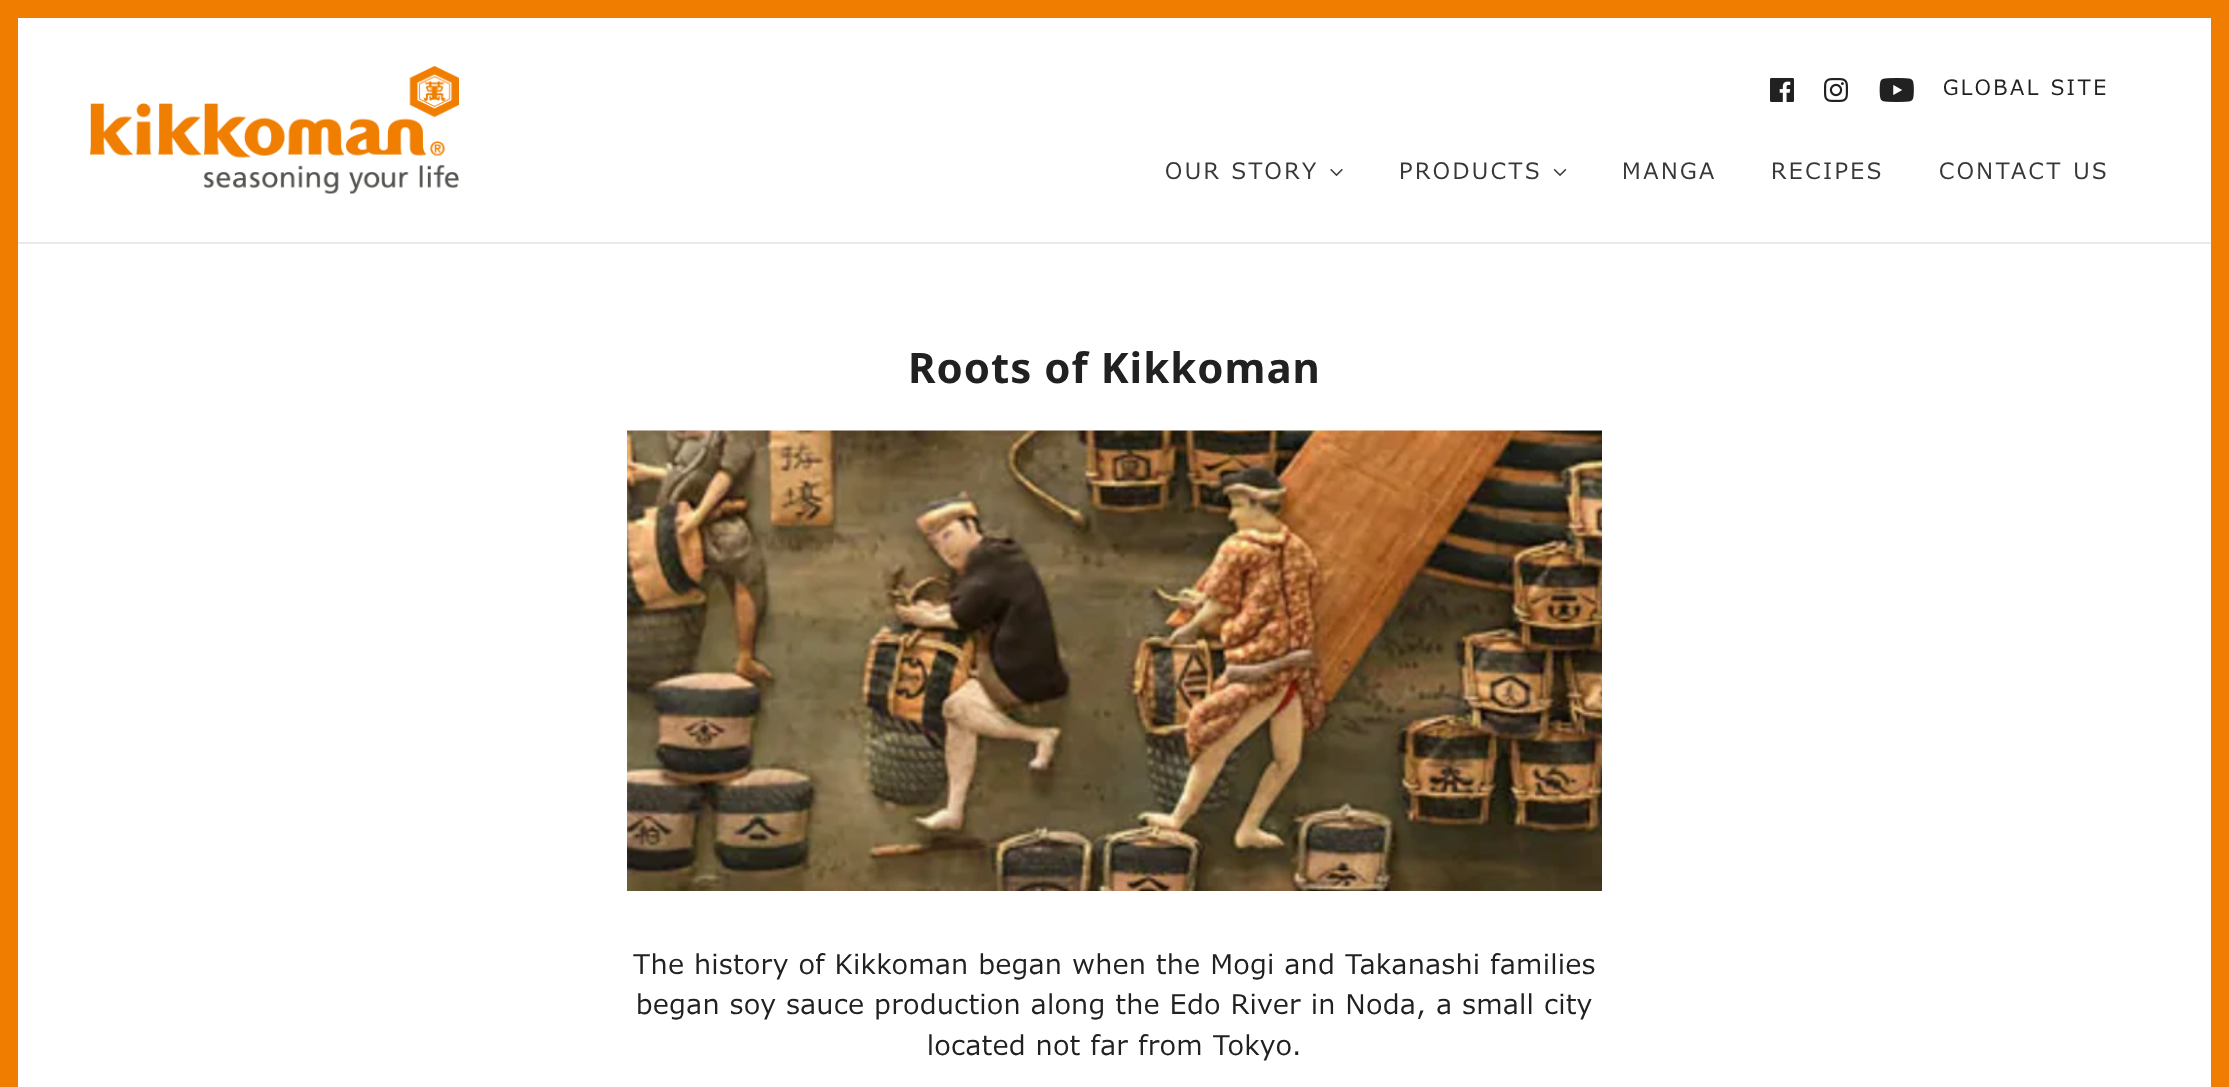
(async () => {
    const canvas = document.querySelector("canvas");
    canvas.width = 2229;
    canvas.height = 1087;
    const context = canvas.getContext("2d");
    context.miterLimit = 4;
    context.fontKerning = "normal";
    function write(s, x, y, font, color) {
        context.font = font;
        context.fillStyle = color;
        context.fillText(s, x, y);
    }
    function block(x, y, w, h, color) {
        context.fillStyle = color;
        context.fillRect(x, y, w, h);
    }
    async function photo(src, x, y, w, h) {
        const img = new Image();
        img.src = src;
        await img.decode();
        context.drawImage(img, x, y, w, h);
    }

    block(0, 0, 2229, 1087, "rgb(255, 255, 255)");
    context.strokeStyle = "rgb(240, 125, 0)";
    context.lineWidth = 18;
    context.strokeRect(9, 9, 2211, 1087);
    block(18, 242, 2193, 2, "rgb(234, 234, 234)");
    await photo("media/1.png", 90, 66, 369, 128);
    await photo("media/2.png", 1770, 78, 24, 24);
    await photo("media/3.png", 1824, 78, 24, 24);
    await photo("media/4.png", 1879, 78, 35, 24);
    context.letterSpacing = "2.5px";
    write("GLOBAL SITE", 1943, 95, "21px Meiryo", "rgb(33, 33, 33)");
    write("OUR STORY", 1165, 179, "22.5px Meiryo", "rgb(55, 55, 55)");
    await photo("media/5.png", 1330, 168, 13, 9);
    write("PRODUCTS", 1399, 179, "22.5px Meiryo", "rgb(55, 55, 55)");
    await photo("media/6.png", 1553, 168, 14, 8);
    write("MANGA", 1622, 179, "22.5px Meiryo", "rgb(55, 55, 55)");
    write("RECIPES", 1771, 179, "22.5px Meiryo", "rgb(55, 55, 55)");
    write("CONTACT US", 1939, 179, "22.5px Meiryo", "rgb(55, 55, 55)");
    context.letterSpacing = "1px";
    write("Roots of Kikkoman", 908, 383, "bold 42px Noto Sans", "rgb(33, 33, 33)");
    await photo("media/7.png", 627, 430, 975, 461);
    context.letterSpacing = "0.65px";
    write("The history of Kikkoman began when the Mogi and Takanashi families", 633, 974, "27px Meiryo", "rgb(33, 33, 33)");
    write("began soy sauce production along the Edo River in Noda, a small city", 636, 1014, "27px Meiryo", "rgb(33, 33, 33)");
    write("located not far from Tokyo.", 927, 1055, "27px Meiryo", "rgb(33, 33, 33)");
})();
